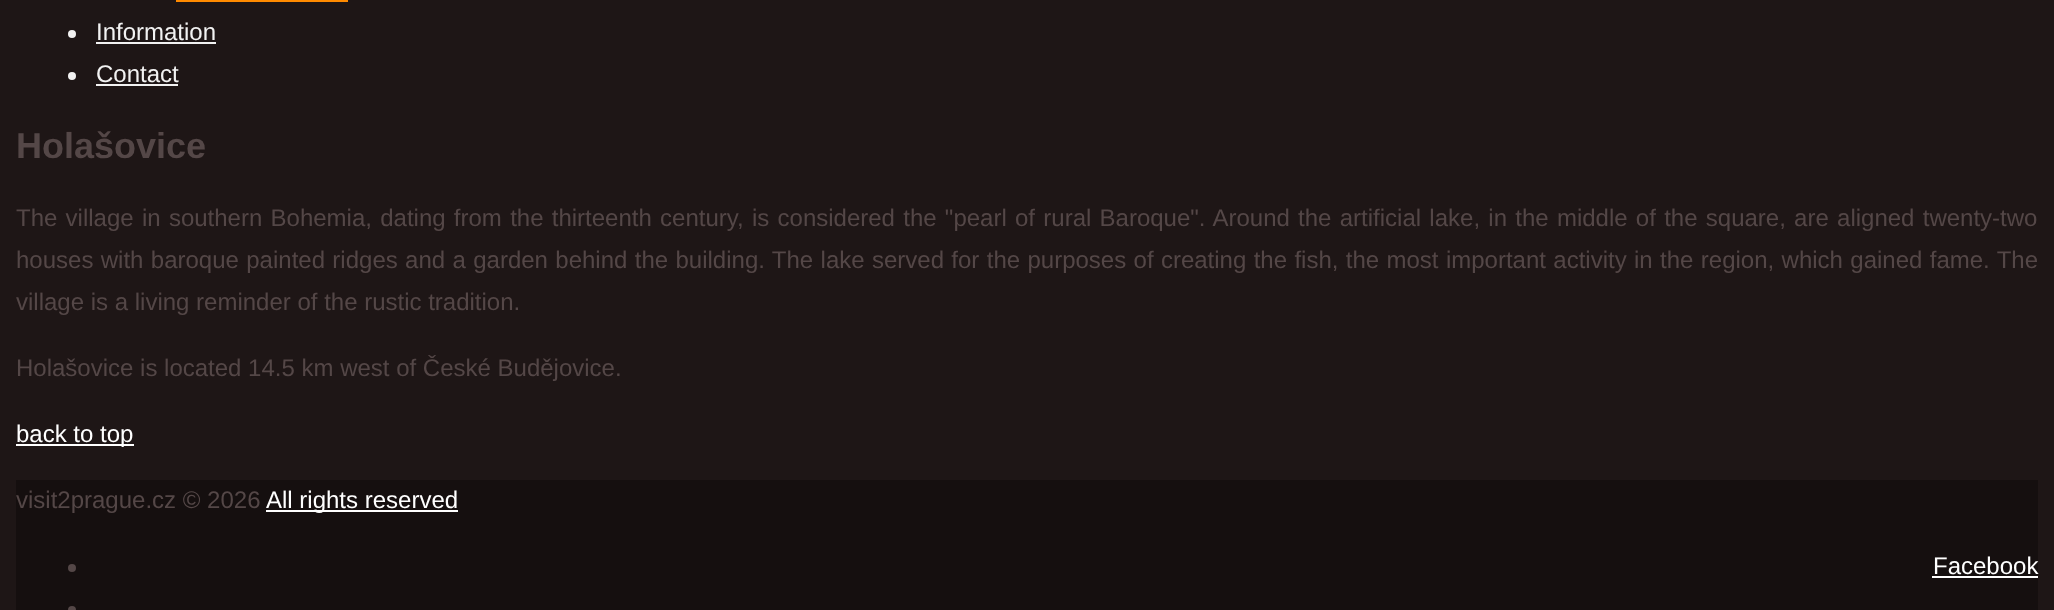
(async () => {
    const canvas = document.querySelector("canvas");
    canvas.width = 2054;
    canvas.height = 610;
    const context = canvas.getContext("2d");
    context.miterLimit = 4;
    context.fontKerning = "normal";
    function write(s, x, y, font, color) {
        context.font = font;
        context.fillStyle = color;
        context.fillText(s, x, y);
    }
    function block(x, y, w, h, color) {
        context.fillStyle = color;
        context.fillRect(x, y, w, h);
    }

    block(0, 0, 2054, 610, "rgb(30, 22, 22)");
    block(176, 0, 172, 2, "rgb(255, 138, 0)");
    context.fillStyle = "rgb(242, 242, 242)";
    context.beginPath();
    context.arc(72, 34, 4, 0, Math.PI * 2);
    context.fill();
    write("Information", 96, 40, "24px Liberation Sans", "rgb(242, 242, 242)");
    block(96, 42, 120, 2, "rgb(242, 242, 242)");
    context.beginPath();
    context.arc(72, 76, 4, 0, Math.PI * 2);
    context.fill();
    write("Contact", 96, 82, "24px Liberation Sans", "rgb(242, 242, 242)");
    block(96, 84, 82, 2, "rgb(242, 242, 242)");
    write("Holašovice", 16, 158, "bold 36px Liberation Sans", "rgb(84, 71, 71)");
    context.wordSpacing = "1.6px";
    write("The village in southern Bohemia, dating from the thirteenth century, is considered the \"pearl of rural Baroque\". Around the artificial lake, in the middle of the square, are aligned twenty-two", 16, 226, "24px Liberation Sans", "rgb(84, 71, 71)");
    context.wordSpacing = "0.7px";
    write("houses with baroque painted ridges and a garden behind the building. The lake served for the purposes of creating the fish, the most important activity in the region, which gained fame. The", 16, 268, "24px Liberation Sans", "rgb(84, 71, 71)");
    context.wordSpacing = "0px";
    write("village is a living reminder of the rustic tradition.", 16, 310, "24px Liberation Sans", "rgb(84, 71, 71)");
    write("Holašovice is located 14.5 km west of České Budějovice.", 16, 376, "24px Liberation Sans", "rgb(84, 71, 71)");
    block(16, 444, 118, 2, "rgb(255, 255, 255)");
    write("back to top", 16, 442, "24px Liberation Sans", "rgb(255, 255, 255)");
    block(16, 480, 2022, 130, "rgb(21, 15, 15)");
    write("visit2prague.cz © 2026", 16, 508, "24px Liberation Sans", "rgb(84, 71, 71)");
    block(266, 510, 192, 2, "rgb(255, 255, 255)");
    write("All rights reserved", 266, 508, "24px Liberation Sans", "rgb(255, 255, 255)");
    context.fillStyle = "rgb(84, 71, 71)";
    context.beginPath();
    context.arc(72, 568, 4, 0, Math.PI * 2);
    context.fill();
    write("Facebook", 1933, 574, "24px Liberation Sans", "rgb(255, 255, 255)");
    block(1932, 576, 106, 2, "rgb(255, 255, 255)");
    context.fillStyle = "rgb(84, 71, 71)";
    context.beginPath();
    context.arc(72, 610, 4, 0, Math.PI * 2);
    context.fill();
})();
